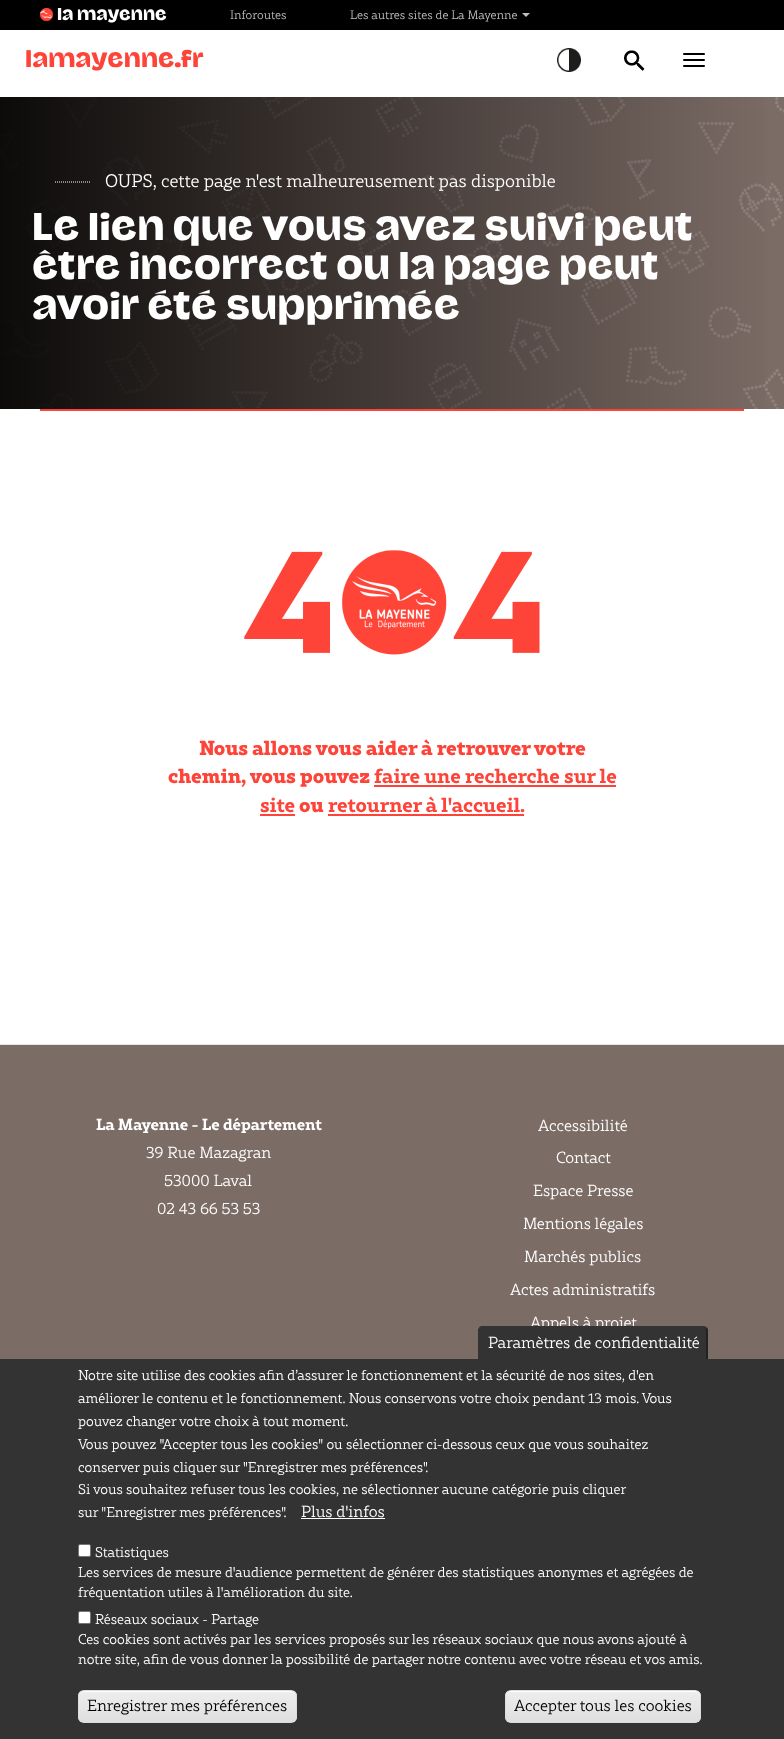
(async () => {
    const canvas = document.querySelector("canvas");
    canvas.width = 784;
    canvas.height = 1739;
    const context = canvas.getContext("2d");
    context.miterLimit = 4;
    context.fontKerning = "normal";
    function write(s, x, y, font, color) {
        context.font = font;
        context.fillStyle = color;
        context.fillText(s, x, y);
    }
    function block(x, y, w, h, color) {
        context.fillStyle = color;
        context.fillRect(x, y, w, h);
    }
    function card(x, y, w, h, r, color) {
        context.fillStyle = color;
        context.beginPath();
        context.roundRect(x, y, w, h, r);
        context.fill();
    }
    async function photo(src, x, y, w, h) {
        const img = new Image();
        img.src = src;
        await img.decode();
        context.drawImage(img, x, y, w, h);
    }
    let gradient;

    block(0, 0, 784, 1739, "rgb(255, 255, 255)");
    block(0, 0, 784, 30, "rgb(0, 0, 0)");
    await photo("media/1.png", 40, 8, 13, 13);
    write("la mayenne", 57, 20, "500 16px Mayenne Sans", "rgb(255, 255, 255)");
    write("Inforoutes", 230, 19, "300 12.1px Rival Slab", "rgb(196, 191, 188)");
    write("Les autres sites de La Mayenne", 350, 19, "300 12.1px Rival Slab", "rgb(196, 191, 188)");
    context.beginPath();
    context.moveTo(522, 13);
    context.lineTo(530, 13);
    context.lineTo(526, 17);
    context.closePath();
    context.fill();
    write("lamayenne.fr", 25, 67, "500 22.5px Mayenne Sans", "rgb(254, 68, 56)");
    await photo("media/2.png", 557, 48, 24, 24);
    await photo("media/3.png", 624, 50, 21, 21);
    card(683, 53, 22, 2, 1, "rgb(0, 0, 0)");
    card(683, 59, 22, 2, 1, "rgb(0, 0, 0)");
    card(683, 65, 22, 2, 1, "rgb(0, 0, 0)");
    block(0, 97, 784, 312, "rgb(124, 108, 102)");
    await photo("media/4.png", 0, 97, 784, 312);
    gradient = context.createLinearGradient(0, 253, 784, 253);
    gradient.addColorStop(0, "rgba(0, 0, 0, 0.9)");
    gradient.addColorStop(1, "rgba(0, 0, 0, 0)");
    context.fillStyle = gradient;
    context.fillRect(0, 97, 765, 312);
    context.beginPath();
    context.moveTo(55, 182);
    context.lineTo(90, 182);
    context.strokeStyle = "rgb(255, 255, 255)";
    context.setLineDash([1, 1]);
    context.stroke();
    write("OUPS, cette page n'est malheureusement pas disponible", 105, 187, "300 18px Rival Slab", "rgb(255, 255, 255)");
    write("Le lien que vous avez suivi peut", 32, 240, "500 36px Mayenne Sans", "rgb(255, 255, 255)");
    write("être incorrect ou la page peut", 32, 279, "500 36px Mayenne Sans", "rgb(255, 255, 255)");
    write("avoir été supprimée", 32, 319, "500 36px Mayenne Sans", "rgb(255, 255, 255)");
    block(40, 409, 704, 2, "rgb(254, 68, 56)");
    await photo("media/5.png", 244, 550, 296, 105);
    write("Nous allons vous aider à retrouver votre", 199, 755, "800 20.1px Rival Slab", "rgb(254, 68, 56)");
    write("chemin, vous pouvez", 168, 783, "800 20.1px Rival Slab", "rgb(254, 68, 56)");
    write("faire une recherche sur le", 374, 783, "bold 20.1px Rival Slab", "rgb(254, 68, 56)");
    block(374, 785, 242, 2, "rgb(254, 68, 56)");
    write("site", 260, 812, "bold 20.1px Rival Slab", "rgb(254, 68, 56)");
    block(260, 814, 35, 2, "rgb(254, 68, 56)");
    write("ou", 299, 812, "800 20.1px Rival Slab", "rgb(254, 68, 56)");
    write("retourner à l'accueil.", 328, 812, "bold 20.1px Rival Slab", "rgb(254, 68, 56)");
    block(328, 814, 196, 2, "rgb(254, 68, 56)");
    block(0, 1044, 784, 1, "rgb(229, 229, 229)");
    block(0, 1045, 784, 314, "rgb(124, 108, 102)");
    write("La Mayenne - Le département", 96, 1130, "bold 16px Rival Slab", "rgb(255, 255, 255)");
    write("39 Rue Mazagran", 146, 1158, "300 16px Rival Slab", "rgb(255, 255, 255)");
    write("53000 Laval", 164, 1186, "300 16px Rival Slab", "rgb(255, 255, 255)");
    write("02 43 66 53 53", 157, 1214, "300 16px Rival Slab", "rgb(255, 255, 255)");
    write("Accessibilité", 538, 1131, "300 16px Rival Slab", "rgb(255, 255, 255)");
    write("Contact", 556, 1163, "300 16px Rival Slab", "rgb(255, 255, 255)");
    write("Espace Presse", 533, 1196, "300 16px Rival Slab", "rgb(255, 255, 255)");
    write("Mentions légales", 523, 1229, "300 16px Rival Slab", "rgb(255, 255, 255)");
    write("Marchés publics", 524, 1262, "300 16px Rival Slab", "rgb(255, 255, 255)");
    write("Actes administratifs", 510, 1295, "300 16px Rival Slab", "rgb(255, 255, 255)");
    write("Appels à projet", 530, 1328, "300 16px Rival Slab", "rgb(255, 255, 255)");
    block(0, 1359, 784, 380, "rgb(51, 51, 51)");
    context.beginPath();
    context.roundRect(478, 1326, 230, 33, [5, 5, 0, 0]);
    context.fill();
    context.beginPath();
    context.moveTo(483, 1328);
    context.lineTo(481, 1329);
    context.lineTo(479, 1327);
    context.lineTo(482, 1326);
    context.lineTo(704, 1326);
    context.lineTo(707, 1328);
    context.lineTo(705, 1329);
    context.lineTo(703, 1328);
    context.closePath();
    context.fill();
    context.fillStyle = "rgb(34, 34, 34)";
    context.beginPath();
    context.moveTo(707, 1327.5);
    context.lineTo(705.5, 1329);
    context.bezierCurveTo(706, 1329.5, 706, 1330, 706, 1331);
    context.lineTo(706, 1359);
    context.lineTo(708, 1359);
    context.lineTo(708, 1331);
    context.bezierCurveTo(708, 1329.5, 707.5, 1328.5, 707, 1327.5);
    context.closePath();
    context.fill();
    context.fillStyle = "rgb(51, 51, 51)";
    context.beginPath();
    context.moveTo(478, 1329.5);
    context.lineTo(479.5, 1327.5);
    context.lineTo(480.5, 1329);
    context.bezierCurveTo(480, 1329.5, 480, 1330, 480, 1331);
    context.lineTo(480, 1359);
    context.lineTo(478, 1359);
    context.closePath();
    context.fill();
    write("Paramètres de confidentialité", 488, 1348, "300 16px Rival Slab", "rgb(255, 255, 255)");
    write("Notre site utilise des cookies afin d’assurer le fonctionnement et la sécurité de nos sites, d'en", 78, 1380, "300 14px Rival Slab", "rgb(255, 255, 255)");
    write("améliorer le contenu et le fonctionnement. Nous conservons votre choix pendant 13 mois. Vous", 78, 1403, "300 14px Rival Slab", "rgb(255, 255, 255)");
    write("pouvez changer votre choix à tout moment.", 78, 1426, "300 14px Rival Slab", "rgb(255, 255, 255)");
    write("Vous pouvez \"Accepter tous les cookies\" ou sélectionner ci-dessous ceux que vous souhaitez", 78, 1449, "300 14px Rival Slab", "rgb(255, 255, 255)");
    write("conserver puis cliquer sur \"Enregistrer mes préférences\".", 78, 1472, "300 14px Rival Slab", "rgb(255, 255, 255)");
    write("Si vous souhaitez refuser tous les cookies, ne sélectionner aucune catégorie puis cliquer", 78, 1494, "300 14px Rival Slab", "rgb(255, 255, 255)");
    write("sur \"Enregistrer mes préférences\".", 78, 1517, "300 14px Rival Slab", "rgb(255, 255, 255)");
    write("Plus d'infos", 301, 1517, "300 16px Rival Slab", "rgb(255, 255, 255)");
    block(301, 1518, 84, 1, "rgb(255, 255, 255)");
    context.beginPath();
    context.roundRect(78.5, 1544.5, 12, 12, 1.5);
    context.fill();
    context.strokeStyle = "rgb(118, 118, 118)";
    context.setLineDash([]);
    context.stroke();
    write("Statistiques", 95, 1557, "300 14px Rival Slab", "rgb(255, 255, 255)");
    write("Les services de mesure d'audience permettent de générer des statistiques anonymes et agrégées de", 78, 1577, "300 14px Rival Slab", "rgb(255, 255, 255)");
    write("fréquentation utiles à l'amélioration du site.", 78, 1597, "300 14px Rival Slab", "rgb(255, 255, 255)");
    context.beginPath();
    context.roundRect(78.5, 1611.5, 12, 12, 1.5);
    context.fill();
    context.stroke();
    write("Réseaux sociaux - Partage", 95, 1624, "300 14px Rival Slab", "rgb(255, 255, 255)");
    write("Ces cookies sont activés par les services proposés sur les réseaux sociaux que nous avons ajouté à", 78, 1644, "300 14px Rival Slab", "rgb(255, 255, 255)");
    write("notre site, afin de vous donner la possibilité de partager notre contenu avec votre réseau et vos amis.", 78, 1664, "300 14px Rival Slab", "rgb(255, 255, 255)");
    context.save();
    context.beginPath();
    context.roundRect(78, 1690, 219, 33, 6);
    context.clip();
    gradient = context.createLinearGradient(188, 1691, 188, 1722);
    gradient.addColorStop(0.05, "rgb(237, 237, 237)");
    gradient.addColorStop(1, "rgb(223, 223, 223)");
    context.fillStyle = gradient;
    context.fillRect(78, 1691, 219, 31);
    context.restore();
    context.beginPath();
    context.moveTo(84, 1692);
    context.lineTo(291, 1692);
    context.bezierCurveTo(294, 1692, 296, 1694, 296, 1697);
    context.bezierCurveTo(296, 1694, 294, 1691, 291, 1691);
    context.lineTo(83, 1691);
    context.bezierCurveTo(80, 1692, 79, 1694, 79, 1697);
    context.bezierCurveTo(79, 1694, 81, 1692, 84, 1692);
    context.closePath();
    context.fill();
    context.beginPath();
    context.roundRect(78.5, 1690.5, 218, 32, 5.5);
    context.strokeStyle = "rgb(220, 220, 220)";
    context.stroke();
    write("Enregistrer mes préférences", 87, 1711, "300 16px Rival Slab", "rgb(0, 0, 0)");
    context.save();
    context.beginPath();
    context.roundRect(505, 1690, 196, 33, 6);
    context.clip();
    gradient = context.createLinearGradient(603, 1691, 603, 1722);
    gradient.addColorStop(0.05, "rgb(237, 237, 237)");
    gradient.addColorStop(1, "rgb(223, 223, 223)");
    context.fillStyle = gradient;
    context.fillRect(505, 1691, 196, 31);
    context.restore();
    context.fillStyle = "rgb(255, 255, 255)";
    context.beginPath();
    context.moveTo(511, 1692);
    context.lineTo(695, 1692);
    context.bezierCurveTo(698, 1692, 700, 1694, 700, 1697);
    context.lineTo(700, 1696);
    context.bezierCurveTo(700, 1693, 698, 1691, 695, 1691);
    context.lineTo(511, 1691);
    context.bezierCurveTo(508, 1691, 506, 1693, 506, 1696);
    context.lineTo(506, 1697);
    context.bezierCurveTo(506, 1694, 508, 1692, 511, 1692);
    context.closePath();
    context.fill();
    context.beginPath();
    context.roundRect(505.5, 1690.5, 195, 32, 5.5);
    context.stroke();
    write("Accepter tous les cookies", 514, 1711, "300 16px Rival Slab", "rgb(0, 0, 0)");
})();
